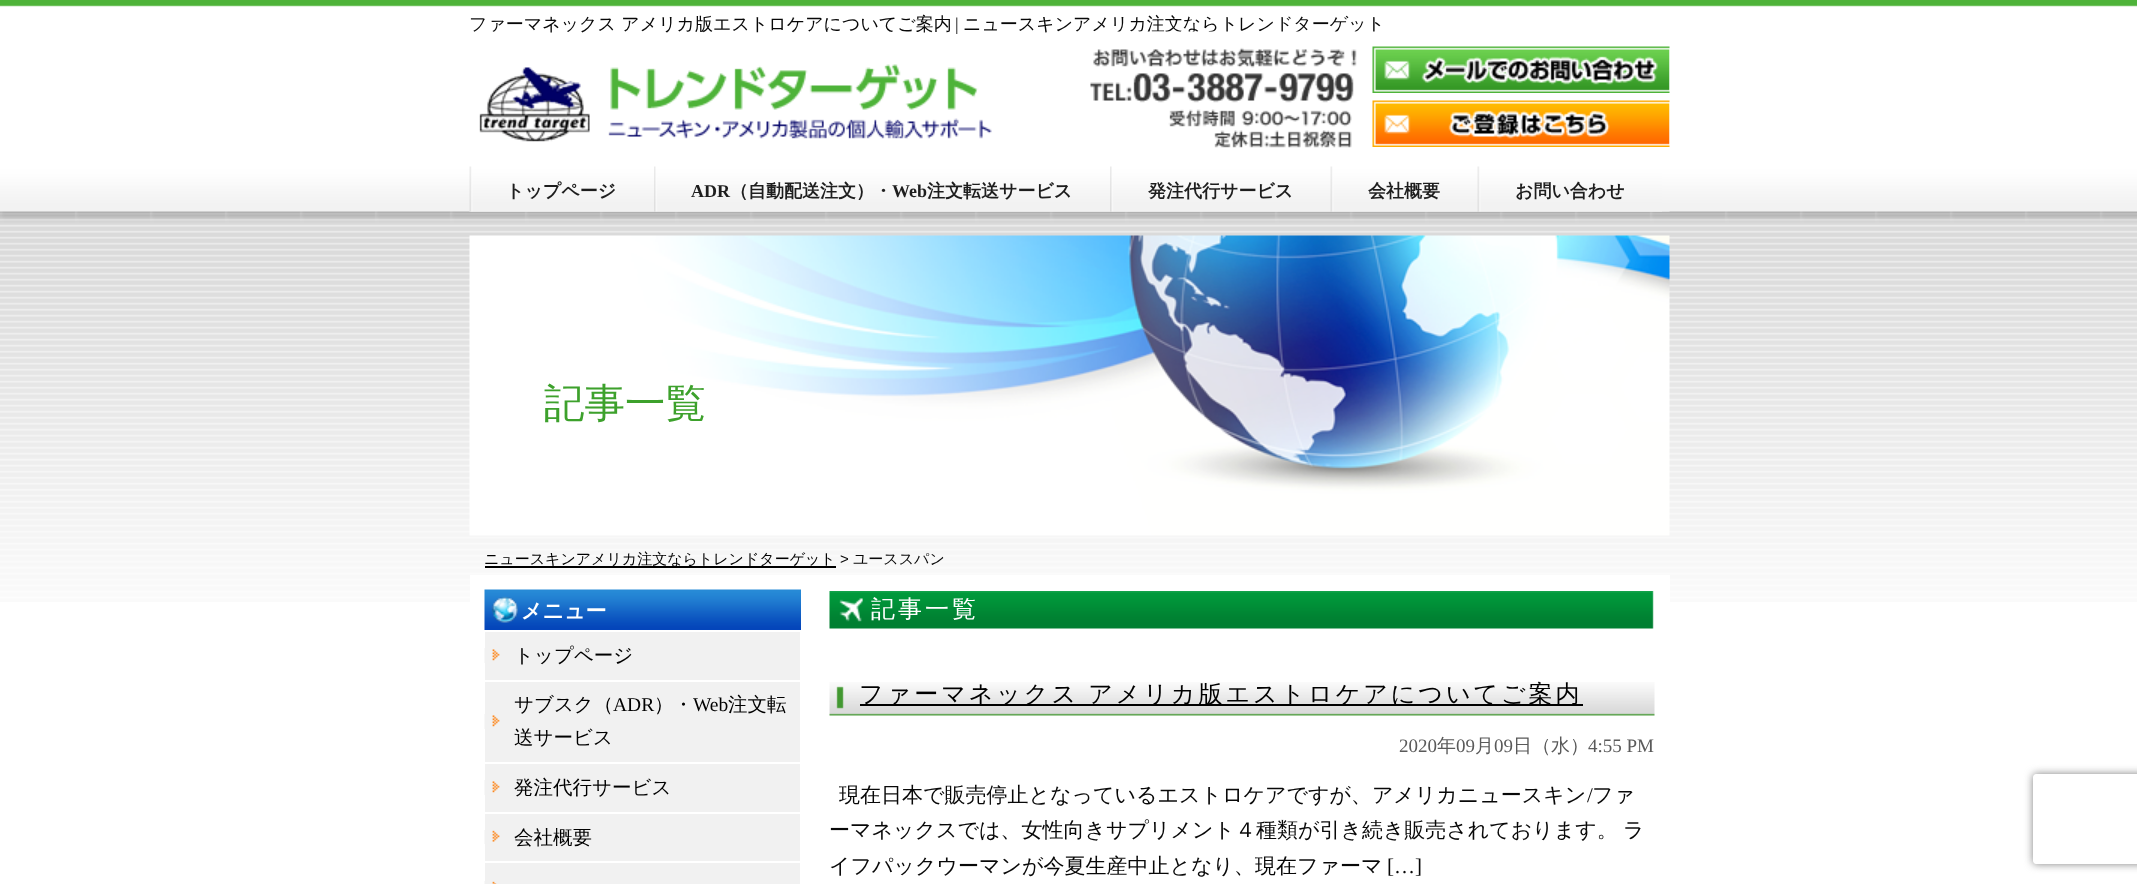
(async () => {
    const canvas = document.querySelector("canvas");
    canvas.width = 2137;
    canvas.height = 884;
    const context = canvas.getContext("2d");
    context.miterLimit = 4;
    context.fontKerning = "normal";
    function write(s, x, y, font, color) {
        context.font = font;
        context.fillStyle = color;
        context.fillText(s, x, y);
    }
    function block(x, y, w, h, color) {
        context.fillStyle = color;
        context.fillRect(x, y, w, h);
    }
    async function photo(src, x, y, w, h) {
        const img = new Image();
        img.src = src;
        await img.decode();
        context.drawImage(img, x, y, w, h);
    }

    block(0, 0, 2137, 884, "rgb(255, 255, 255)");
    await photo("media/1.png", 0, 0, 2137, 602);
    write("ファーマネックス アメリカ版エストロケアについてご案内", 469, 30, "500 18px WenQuanYi Zen Hei", "rgb(8, 8, 8)");
    write("|", 955, 30, "18px Liberation Serif", "rgb(8, 8, 8)");
    write("ニュースキンアメリカ注文ならトレンドターゲット", 963, 30, "500 18px WenQuanYi Zen Hei", "rgb(8, 8, 8)");
    await photo("media/2.png", 479, 64, 513, 78);
    await photo("media/3.png", 1090, 31, 285, 117);
    await photo("media/4.png", 1372, 46, 298, 47);
    await photo("media/5.png", 1372, 100, 298, 47);
    await photo("media/6.png", 469, 211, 1201, 1);
    await photo("media/7.png", 469, 166, 185, 46);
    write("トップページ", 506, 197, "bold 18px WenQuanYi Zen Hei", "rgb(30, 30, 30)");
    await photo("media/8.png", 654, 166, 456, 46);
    write("ADR", 691, 197, "bold 18px Liberation Serif", "rgb(30, 30, 30)");
    write("（自動配送注文）・", 730, 197, "bold 18px WenQuanYi Zen Hei", "rgb(30, 30, 30)");
    write("Web", 892, 197, "bold 18px Liberation Serif", "rgb(30, 30, 30)");
    write("注文転送サービス", 927, 197, "bold 18px WenQuanYi Zen Hei", "rgb(30, 30, 30)");
    await photo("media/9.png", 1110, 166, 221, 46);
    write("発注代行サービス", 1148, 197, "bold 18px WenQuanYi Zen Hei", "rgb(30, 30, 30)");
    await photo("media/10.png", 1330, 166, 148, 46);
    write("会社概要", 1368, 197, "bold 18px WenQuanYi Zen Hei", "rgb(30, 30, 30)");
    await photo("media/11.png", 1477, 166, 185, 46);
    write("お問い合わせ", 1515, 197, "bold 18px WenQuanYi Zen Hei", "rgb(30, 30, 30)");
    await photo("media/12.png", 469, 235, 1201, 301);
    write("記事一覧", 544, 417, "500 40.5px WenQuanYi Zen Hei", "rgb(61, 161, 44)");
    block(485, 566, 351, 2, "rgb(0, 0, 0)");
    write("ニュースキンアメリカ注文ならトレンドターゲット", 484, 564, "500 15px WenQuanYi Zen Hei", "rgb(0, 0, 0)");
    write(">", 840, 564, "15px Liberation Sans", "rgb(8, 8, 8)");
    write("ユーススパン", 853, 564, "500 15px WenQuanYi Zen Hei", "rgb(8, 8, 8)");
    block(470, 575, 1200, 27, "rgb(255, 255, 255)");
    await photo("media/13.png", 484, 589, 317, 41);
    write("メニュー", 521, 618, "bold 21px WenQuanYi Zen Hei", "rgb(255, 255, 255)");
    block(485, 632, 315, 252, "rgb(241, 241, 241)");
    await photo("media/14.png", 484, 648, 16, 15);
    block(485, 680, 315, 2, "rgb(255, 255, 255)");
    write("トップページ", 514, 662, "500 19.5px WenQuanYi Zen Hei", "rgb(0, 0, 0)");
    await photo("media/14.png", 484, 714, 16, 15);
    block(485, 762, 315, 2, "rgb(255, 255, 255)");
    write("サブスク（", 514, 711, "500 19.5px WenQuanYi Zen Hei", "rgb(0, 0, 0)");
    write("ADR", 613, 711, "19.5px Liberation Serif", "rgb(0, 0, 0)");
    write("）・", 654, 711, "500 19.5px WenQuanYi Zen Hei", "rgb(0, 0, 0)");
    write("Web", 693, 711, "19.5px Liberation Serif", "rgb(0, 0, 0)");
    write("注文転", 728, 711, "500 19.5px WenQuanYi Zen Hei", "rgb(0, 0, 0)");
    write("送サービス", 514, 744, "500 19.5px WenQuanYi Zen Hei", "rgb(0, 0, 0)");
    await photo("media/14.png", 484, 780, 16, 15);
    block(485, 812, 315, 2, "rgb(255, 255, 255)");
    write("発注代行サービス", 514, 794, "500 19.5px WenQuanYi Zen Hei", "rgb(0, 0, 0)");
    await photo("media/15.png", 484, 830, 16, 14);
    block(485, 861, 315, 2, "rgb(255, 255, 255)");
    write("会社概要", 514, 844, "500 19.5px WenQuanYi Zen Hei", "rgb(0, 0, 0)");
    await photo("media/16.png", 484, 881, 13, 3);
    await photo("media/17.png", 829, 591, 825, 38);
    context.letterSpacing = "3px";
    write("記事一覧", 871, 617, "500 24px WenQuanYi Zen Hei", "rgb(255, 255, 255)");
    await photo("media/18.png", 829, 682, 826, 34);
    block(860, 704, 723, 2, "rgb(0, 0, 0)");
    context.wordSpacing = "-1px";
    write("ファーマネックス アメリカ版エストロケアについてご案内", 859, 702, "500 24px WenQuanYi Zen Hei", "rgb(0, 0, 0)");
    context.letterSpacing = "0px";
    context.wordSpacing = "0px";
    write("2020", 1399, 752, "19px Liberation Serif", "rgb(90, 90, 90)");
    write("年", 1437, 752, "500 19px WenQuanYi Zen Hei", "rgb(90, 90, 90)");
    write("09", 1456, 752, "19px Liberation Serif", "rgb(90, 90, 90)");
    write("月", 1475, 752, "500 19px WenQuanYi Zen Hei", "rgb(90, 90, 90)");
    write("09", 1494, 752, "19px Liberation Serif", "rgb(90, 90, 90)");
    write("日（水）", 1513, 752, "500 19px WenQuanYi Zen Hei", "rgb(90, 90, 90)");
    write("4:55 PM", 1588, 752, "19px Liberation Serif", "rgb(90, 90, 90)");
    write("現在日本で販売停止となっているエストロケアですが、アメリカニュースキン", 839, 802, "500 21px WenQuanYi Zen Hei", "rgb(8, 8, 8)");
    write("/", 1587, 802, "21px Liberation Serif", "rgb(8, 8, 8)");
    write("ファ", 1592, 802, "500 21px WenQuanYi Zen Hei", "rgb(8, 8, 8)");
    context.wordSpacing = "-1px";
    write("ーマネックスでは、女性向きサプリメント４種類が引き続き販売されております。 ラ", 829, 837, "500 21px WenQuanYi Zen Hei", "rgb(8, 8, 8)");
    context.wordSpacing = "0px";
    write("イフパックウーマンが今夏生産中止となり、現在ファーマ", 829, 873, "500 21px WenQuanYi Zen Hei", "rgb(8, 8, 8)");
    write("[…]", 1387, 873, "21px Liberation Serif", "rgb(8, 8, 8)");
    context.save();
    context.beginPath();
    context.moveTo(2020, 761);
    context.lineTo(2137, 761);
    context.lineTo(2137, 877);
    context.lineTo(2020, 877);
    context.closePath();
    context.moveTo(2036, 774);
    context.lineTo(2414, 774);
    context.bezierCurveTo(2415.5, 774, 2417, 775.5, 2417, 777);
    context.lineTo(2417, 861);
    context.bezierCurveTo(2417, 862.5, 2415.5, 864, 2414, 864);
    context.lineTo(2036, 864);
    context.bezierCurveTo(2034.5, 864, 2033, 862.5, 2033, 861);
    context.lineTo(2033, 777);
    context.bezierCurveTo(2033, 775.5, 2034.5, 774, 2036, 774);
    context.closePath();
    context.clip("evenodd");
    context.fillStyle = "rgb(128, 128, 128)";
    context.filter = "blur(4px)";
    context.beginPath();
    context.roundRect(2033, 774, 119, 90, 3);
    context.fill();
    context.filter = "none";
    context.restore();
})();
